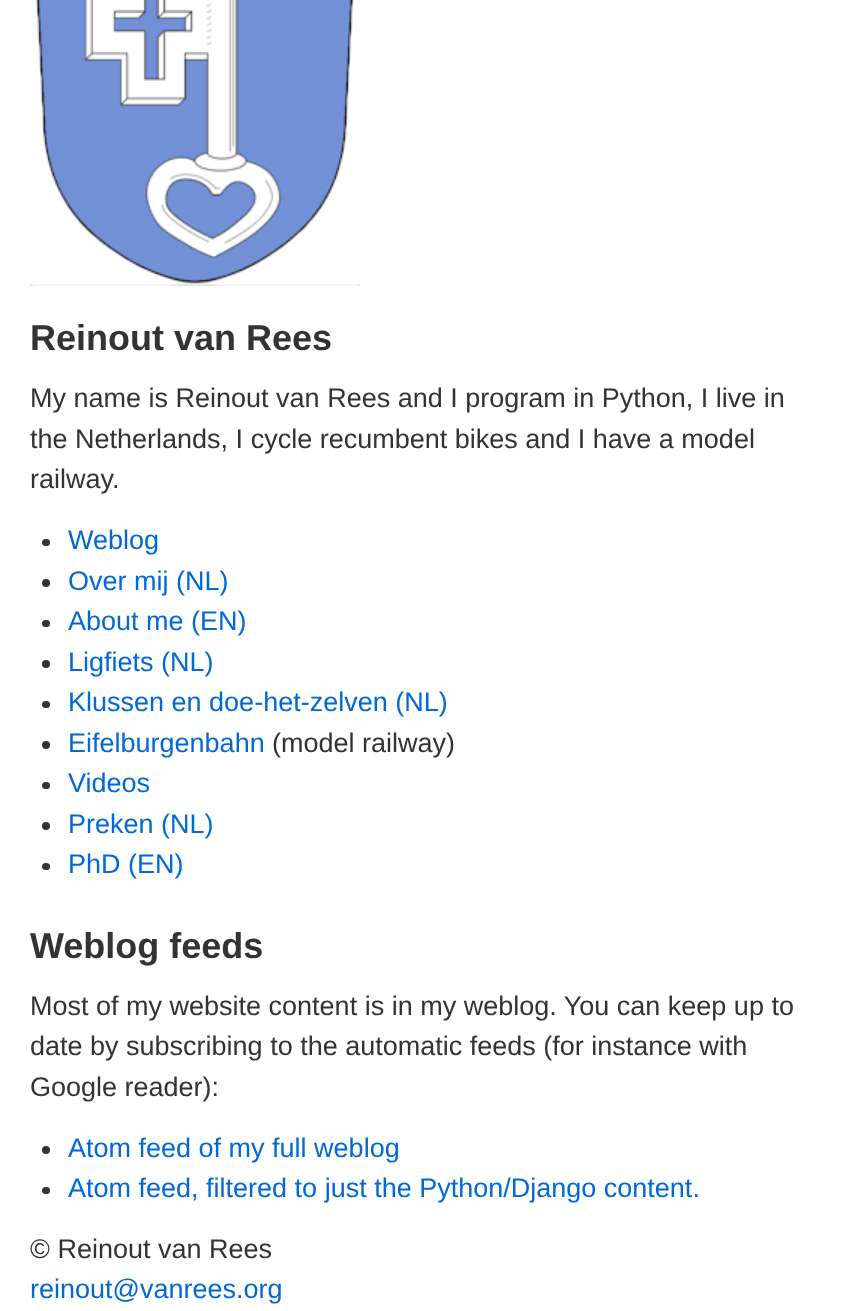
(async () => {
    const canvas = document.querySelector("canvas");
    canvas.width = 848;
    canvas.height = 1311;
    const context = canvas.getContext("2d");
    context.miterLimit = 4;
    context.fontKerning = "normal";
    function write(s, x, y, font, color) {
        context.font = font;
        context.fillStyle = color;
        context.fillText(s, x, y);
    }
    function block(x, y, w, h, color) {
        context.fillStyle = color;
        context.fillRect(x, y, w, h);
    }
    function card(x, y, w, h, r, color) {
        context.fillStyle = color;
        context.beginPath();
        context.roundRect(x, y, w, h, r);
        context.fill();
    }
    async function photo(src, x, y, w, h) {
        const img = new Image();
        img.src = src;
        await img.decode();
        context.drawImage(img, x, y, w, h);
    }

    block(0, 0, 848, 1311, "rgb(255, 255, 255)");
    await photo("media/1.png", 30, 0, 330, 286);
    write("Reinout van Rees", 30, 350, "bold 36px Liberation Sans", "rgb(51, 51, 51)");
    write("My name is Reinout van Rees and I program in Python, I live in", 30, 407, "27px Liberation Sans", "rgb(51, 51, 51)");
    write("the Netherlands, I cycle recumbent bikes and I have a model", 30, 448, "27px Liberation Sans", "rgb(51, 51, 51)");
    write("railway.", 30, 488, "27px Liberation Sans", "rgb(51, 51, 51)");
    card(42, 539, 8, 7, 3.5, "rgb(51, 51, 51)");
    write("Weblog", 68, 549, "27px Liberation Sans", "rgb(0, 105, 214)");
    context.fillStyle = "rgb(51, 51, 51)";
    context.beginPath();
    context.arc(46, 583, 4, 0, Math.PI * 2);
    context.fill();
    write("Over mij (NL)", 68, 590, "27px Liberation Sans", "rgb(0, 105, 214)");
    card(42, 620, 8, 7, 3.5, "rgb(51, 51, 51)");
    write("About me (EN)", 68, 630, "27px Liberation Sans", "rgb(0, 105, 214)");
    context.fillStyle = "rgb(51, 51, 51)";
    context.beginPath();
    context.arc(46, 664, 4, 0, Math.PI * 2);
    context.fill();
    write("Ligfiets (NL)", 68, 671, "27px Liberation Sans", "rgb(0, 105, 214)");
    card(42, 701, 8, 7, 3.5, "rgb(51, 51, 51)");
    write("Klussen en doe-het-zelven (NL)", 68, 711, "27px Liberation Sans", "rgb(0, 105, 214)");
    context.fillStyle = "rgb(51, 51, 51)";
    context.beginPath();
    context.arc(46, 745, 4, 0, Math.PI * 2);
    context.fill();
    write("Eifelburgenbahn", 68, 752, "27px Liberation Sans", "rgb(0, 105, 214)");
    write("(model railway)", 272, 752, "27px Liberation Sans", "rgb(51, 51, 51)");
    card(42, 782, 8, 7, 3.5, "rgb(51, 51, 51)");
    write("Videos", 68, 792, "27px Liberation Sans", "rgb(0, 105, 214)");
    context.fillStyle = "rgb(51, 51, 51)";
    context.beginPath();
    context.arc(46, 826, 4, 0, Math.PI * 2);
    context.fill();
    write("Preken (NL)", 68, 833, "27px Liberation Sans", "rgb(0, 105, 214)");
    card(42, 863, 8, 7, 3.5, "rgb(51, 51, 51)");
    write("PhD (EN)", 68, 873, "27px Liberation Sans", "rgb(0, 105, 214)");
    write("Weblog feeds", 30, 958, "bold 36px Liberation Sans", "rgb(51, 51, 51)");
    write("Most of my website content is in my weblog. You can keep up to", 30, 1015, "27px Liberation Sans", "rgb(51, 51, 51)");
    write("date by subscribing to the automatic feeds (for instance with", 30, 1055, "27px Liberation Sans", "rgb(51, 51, 51)");
    write("Google reader):", 30, 1096, "27px Liberation Sans", "rgb(51, 51, 51)");
    context.beginPath();
    context.arc(46, 1150, 4, 0, Math.PI * 2);
    context.fill();
    write("Atom feed of my full weblog", 68, 1157, "27px Liberation Sans", "rgb(0, 105, 214)");
    card(42, 1187, 8, 7, 3.5, "rgb(51, 51, 51)");
    write("Atom feed, filtered to just the Python/Django content.", 68, 1197, "27px Liberation Sans", "rgb(0, 105, 214)");
    write("© Reinout van Rees", 30, 1258, "27px Liberation Sans", "rgb(51, 51, 51)");
    write("reinout@vanrees.org", 30, 1298, "27px Liberation Sans", "rgb(0, 105, 214)");
})();
